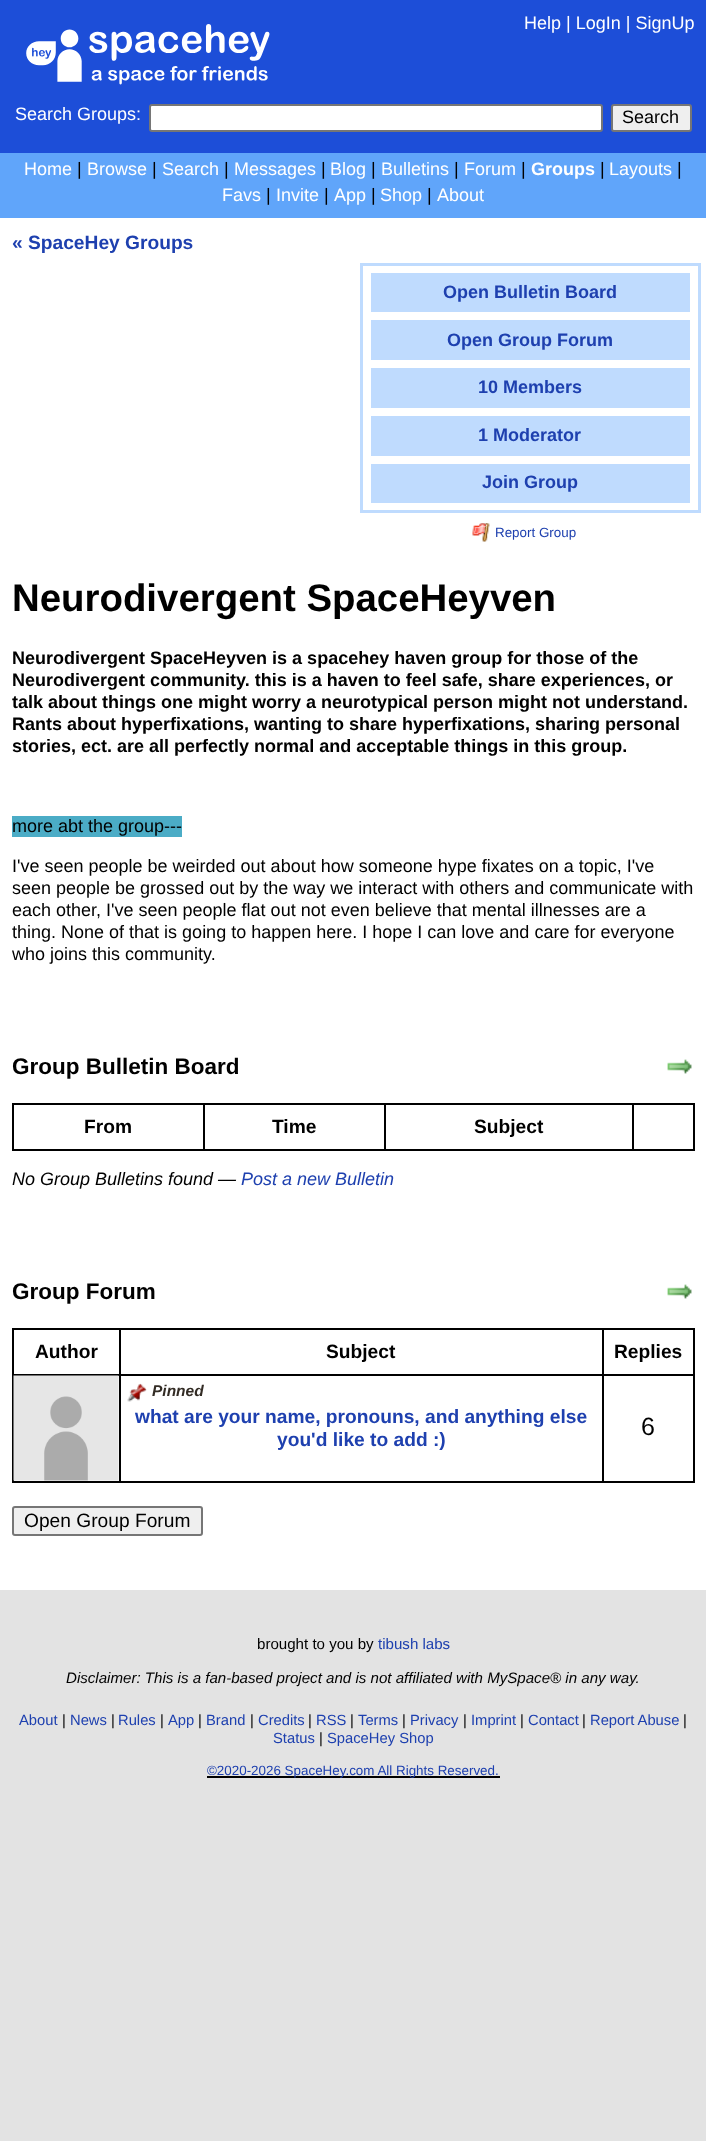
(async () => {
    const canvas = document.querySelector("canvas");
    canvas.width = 706;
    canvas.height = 2141;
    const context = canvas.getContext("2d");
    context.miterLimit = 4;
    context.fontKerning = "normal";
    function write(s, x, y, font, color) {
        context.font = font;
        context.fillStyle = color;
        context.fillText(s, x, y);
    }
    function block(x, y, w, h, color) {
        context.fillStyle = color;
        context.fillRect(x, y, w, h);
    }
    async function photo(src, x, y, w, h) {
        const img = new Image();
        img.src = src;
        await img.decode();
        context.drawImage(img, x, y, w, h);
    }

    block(0, 0, 706, 2141, "rgb(227, 227, 227)");
    block(0, 0, 706, 153, "rgb(29, 78, 216)");
    await photo("media/1.png", 26, 24, 244, 61);
    write("Help | LogIn | SignUp", 524, 29, "18px Liberation Sans", "rgb(255, 255, 255)");
    write("Search Groups:", 15, 120, "18px Liberation Sans", "rgb(255, 255, 255)");
    context.beginPath();
    context.roundRect(150, 105, 452, 26, 2);
    context.fill();
    context.strokeStyle = "rgb(118, 118, 118)";
    context.lineWidth = 2;
    context.stroke();
    context.fillStyle = "rgb(239, 239, 239)";
    context.beginPath();
    context.roundRect(612, 105, 79, 26, 2);
    context.fill();
    context.stroke();
    write("Search", 622, 123, "18px Liberation Sans", "rgb(0, 0, 0)");
    block(0, 153, 706, 65, "rgb(96, 165, 250)");
    write("Home", 24, 175, "18px Liberation Sans", "rgb(255, 255, 255)");
    write("|", 77, 175, "18px Liberation Sans", "rgb(0, 0, 0)");
    write("Browse", 87, 175, "18px Liberation Sans", "rgb(255, 255, 255)");
    write("|", 152, 175, "18px Liberation Sans", "rgb(0, 0, 0)");
    write("Search", 162, 175, "18px Liberation Sans", "rgb(255, 255, 255)");
    write("|", 224, 175, "18px Liberation Sans", "rgb(0, 0, 0)");
    write("Messages", 234, 175, "18px Liberation Sans", "rgb(255, 255, 255)");
    write("|", 321, 175, "18px Liberation Sans", "rgb(0, 0, 0)");
    write("Blog", 330, 175, "18px Liberation Sans", "rgb(255, 255, 255)");
    write("|", 371, 175, "18px Liberation Sans", "rgb(0, 0, 0)");
    write("Bulletins", 381, 175, "18px Liberation Sans", "rgb(255, 255, 255)");
    write("|", 454, 175, "18px Liberation Sans", "rgb(0, 0, 0)");
    write("Forum", 464, 175, "18px Liberation Sans", "rgb(255, 255, 255)");
    write("|", 521, 175, "18px Liberation Sans", "rgb(0, 0, 0)");
    write("Groups", 531, 175, "bold 18px Liberation Sans", "rgb(255, 255, 255)");
    write("|", 600, 175, "18px Liberation Sans", "rgb(0, 0, 0)");
    write("Layouts", 609, 175, "18px Liberation Sans", "rgb(255, 255, 255)");
    write("|", 677, 175, "18px Liberation Sans", "rgb(0, 0, 0)");
    write("Favs", 222, 201, "18px Liberation Sans", "rgb(255, 255, 255)");
    write("|", 266, 201, "18px Liberation Sans", "rgb(0, 0, 0)");
    write("Invite", 276, 201, "18px Liberation Sans", "rgb(255, 255, 255)");
    write("|", 324, 201, "18px Liberation Sans", "rgb(0, 0, 0)");
    write("App", 334, 201, "18px Liberation Sans", "rgb(255, 255, 255)");
    write("|", 371, 201, "18px Liberation Sans", "rgb(0, 0, 0)");
    write("Shop", 380, 201, "18px Liberation Sans", "rgb(255, 255, 255)");
    write("|", 427, 201, "18px Liberation Sans", "rgb(0, 0, 0)");
    write("About", 437, 201, "18px Liberation Sans", "rgb(255, 255, 255)");
    block(0, 218, 706, 1372, "rgb(255, 255, 255)");
    write("« SpaceHey Groups", 12, 249, "bold 19.2px Liberation Sans", "rgb(30, 64, 175)");
    context.strokeStyle = "rgb(191, 219, 254)";
    context.lineWidth = 3;
    context.strokeRect(361.5, 264.5, 338, 247);
    block(371, 273, 319, 39, "rgb(191, 219, 254)");
    write("Open Bulletin Board", 443, 298, "bold 18px Liberation Sans", "rgb(30, 64, 175)");
    block(371, 320, 319, 40, "rgb(191, 219, 254)");
    write("Open Group Forum", 447, 346, "bold 18px Liberation Sans", "rgb(30, 64, 175)");
    block(371, 368, 319, 40, "rgb(191, 219, 254)");
    write("10 Members", 478, 393, "bold 18px Liberation Sans", "rgb(30, 64, 175)");
    block(371, 416, 319, 40, "rgb(191, 219, 254)");
    write("1 Moderator", 478, 441, "bold 18px Liberation Sans", "rgb(30, 64, 175)");
    block(371, 464, 319, 39, "rgb(191, 219, 254)");
    write("Join Group", 482, 488, "bold 18px Liberation Sans", "rgb(30, 64, 175)");
    await photo("media/2.png", 472, 523, 18, 19);
    write("Report Group", 495, 537, "13.4px Liberation Sans", "rgb(30, 64, 175)");
    write("Neurodivergent SpaceHeyven", 12, 611, "bold 38.4px Liberation Sans", "rgb(0, 0, 0)");
    write("Neurodivergent SpaceHeyven is a spacehey haven group for those of the", 12, 664, "bold 18px Liberation Sans", "rgb(0, 0, 0)");
    write("Neurodivergent community. this is a haven to feel safe, share experiences, or", 12, 686, "bold 18px Liberation Sans", "rgb(0, 0, 0)");
    write("talk about things one might worry a neurotypical person might not understand.", 12, 708, "bold 18px Liberation Sans", "rgb(0, 0, 0)");
    write("Rants about hyperfixations, wanting to share hyperfixations, sharing personal", 12, 730, "bold 18px Liberation Sans", "rgb(0, 0, 0)");
    write("stories, ect. are all perfectly normal and acceptable things in this group.", 12, 752, "bold 18px Liberation Sans", "rgb(0, 0, 0)");
    block(12, 816, 170, 21, "rgb(75, 172, 198)");
    write("more abt the group---", 12, 832, "18px Liberation Sans", "rgb(0, 0, 0)");
    write("I've seen people be weirded out about how someone hype fixates on a topic, I've", 12, 872, "18px Liberation Sans", "rgb(0, 0, 0)");
    write("seen people be grossed out by the way we interact with others and communicate with", 12, 894, "18px Liberation Sans", "rgb(0, 0, 0)");
    write("each other, I've seen people flat out not even believe that mental illnesses are a", 12, 916, "18px Liberation Sans", "rgb(0, 0, 0)");
    write("thing. None of that is going to happen here. I hope I can love and care for everyone", 12, 938, "18px Liberation Sans", "rgb(0, 0, 0)");
    write("who joins this community.", 12, 960, "18px Liberation Sans", "rgb(0, 0, 0)");
    write("Group Bulletin Board", 12, 1074, "bold 22.5px Liberation Sans", "rgb(0, 0, 0)");
    await photo("media/3.png", 667, 1059, 25, 15);
    block(632, 1103, 63, 2, "rgb(0, 0, 0)");
    block(693, 1103, 2, 48, "rgb(0, 0, 0)");
    block(632, 1149, 63, 2, "rgb(0, 0, 0)");
    block(632, 1103, 2, 48, "rgb(0, 0, 0)");
    block(384, 1103, 249, 2, "rgb(0, 0, 0)");
    block(384, 1149, 249, 2, "rgb(0, 0, 0)");
    block(384, 1103, 2, 48, "rgb(0, 0, 0)");
    block(203, 1103, 183, 2, "rgb(0, 0, 0)");
    block(203, 1149, 183, 2, "rgb(0, 0, 0)");
    block(203, 1103, 2, 48, "rgb(0, 0, 0)");
    block(12, 1103, 192, 2, "rgb(0, 0, 0)");
    block(12, 1149, 192, 2, "rgb(0, 0, 0)");
    block(12, 1103, 2, 48, "rgb(0, 0, 0)");
    write("From", 84, 1133, "bold 19.2px Liberation Sans", "rgb(0, 0, 0)");
    write("Time", 272, 1133, "bold 19.2px Liberation Sans", "rgb(0, 0, 0)");
    write("Subject", 474, 1133, "bold 19.2px Liberation Sans", "rgb(0, 0, 0)");
    write("No Group Bulletins found —", 12, 1185, "italic 18px Liberation Sans", "rgb(0, 0, 0)");
    write("Post a new Bulletin", 241, 1185, "italic 18px Liberation Sans", "rgb(30, 64, 175)");
    write("Group Forum", 12, 1299, "bold 22.5px Liberation Sans", "rgb(0, 0, 0)");
    await photo("media/3.png", 667, 1284, 25, 15);
    block(602, 1328, 93, 2, "rgb(0, 0, 0)");
    block(602, 1374, 93, 2, "rgb(0, 0, 0)");
    block(693, 1374, 2, 108, "rgb(0, 0, 0)");
    block(602, 1481, 93, 2, "rgb(0, 0, 0)");
    block(602, 1374, 2, 108, "rgb(0, 0, 0)");
    block(119, 1374, 484, 2, "rgb(0, 0, 0)");
    block(602, 1328, 2, 48, "rgb(0, 0, 0)");
    block(119, 1328, 484, 2, "rgb(0, 0, 0)");
    block(119, 1481, 484, 2, "rgb(0, 0, 0)");
    block(119, 1374, 2, 108, "rgb(0, 0, 0)");
    block(12, 1374, 108, 2, "rgb(0, 0, 0)");
    block(119, 1328, 2, 48, "rgb(0, 0, 0)");
    block(12, 1328, 108, 2, "rgb(0, 0, 0)");
    block(12, 1481, 108, 2, "rgb(0, 0, 0)");
    block(12, 1374, 2, 108, "rgb(0, 0, 0)");
    block(12, 1328, 2, 48, "rgb(0, 0, 0)");
    write("Author", 35, 1358, "bold 19.2px Liberation Sans", "rgb(0, 0, 0)");
    write("Subject", 326, 1358, "bold 19.2px Liberation Sans", "rgb(0, 0, 0)");
    block(693, 1328, 2, 48, "rgb(0, 0, 0)");
    write("Replies", 614, 1358, "bold 19.2px Liberation Sans", "rgb(0, 0, 0)");
    await photo("media/4.png", 13, 1375, 106, 106);
    await photo("media/5.png", 127, 1383, 20, 19);
    write("Pinned", 152, 1396, "italic bold 15.5px Liberation Sans", "rgb(51, 44, 37)");
    write("what are your name, pronouns, and anything else", 135, 1423, "bold 19.2px Liberation Sans", "rgb(30, 64, 175)");
    write("you'd like to add :)", 277, 1446, "bold 19.2px Liberation Sans", "rgb(30, 64, 175)");
    write("6", 641, 1435, "25px Liberation Sans", "rgb(0, 0, 0)");
    context.fillStyle = "rgb(239, 239, 239)";
    context.beginPath();
    context.roundRect(13, 1507, 189, 28, 2);
    context.fill();
    context.strokeStyle = "rgb(118, 118, 118)";
    context.lineWidth = 2;
    context.stroke();
    write("Open Group Forum", 24, 1527, "19.2px Liberation Sans", "rgb(0, 0, 0)");
    write("brought to you by", 257, 1649, "15.1px Liberation Sans", "rgb(0, 0, 0)");
    write("tibush labs", 378, 1649, "15.1px Liberation Sans", "rgb(30, 64, 175)");
    write("Disclaimer: This is a fan-based project and is not affiliated with MySpace® in any way.", 66, 1683, "italic 15.1px Liberation Sans", "rgb(0, 0, 0)");
    write("About", 19, 1725, "14.75px Liberation Sans", "rgb(30, 64, 175)");
    write("|", 62, 1725, "14.75px Liberation Sans", "rgb(0, 0, 0)");
    write("News", 70, 1725, "14.75px Liberation Sans", "rgb(30, 64, 175)");
    write("|", 111, 1725, "14.75px Liberation Sans", "rgb(0, 0, 0)");
    write("Rules", 118, 1725, "14.75px Liberation Sans", "rgb(30, 64, 175)");
    write("|", 160, 1725, "14.75px Liberation Sans", "rgb(0, 0, 0)");
    write("App", 168, 1725, "14.75px Liberation Sans", "rgb(30, 64, 175)");
    write("|", 198, 1725, "14.75px Liberation Sans", "rgb(0, 0, 0)");
    write("Brand", 206, 1725, "14.75px Liberation Sans", "rgb(30, 64, 175)");
    write("|", 250, 1725, "14.75px Liberation Sans", "rgb(0, 0, 0)");
    write("Credits", 258, 1725, "14.75px Liberation Sans", "rgb(30, 64, 175)");
    write("|", 308, 1725, "14.75px Liberation Sans", "rgb(0, 0, 0)");
    write("RSS", 316, 1725, "14.75px Liberation Sans", "rgb(30, 64, 175)");
    write("|", 350, 1725, "14.75px Liberation Sans", "rgb(0, 0, 0)");
    write("Terms", 358, 1725, "14.75px Liberation Sans", "rgb(30, 64, 175)");
    write("|", 402, 1725, "14.75px Liberation Sans", "rgb(0, 0, 0)");
    write("Privacy", 410, 1725, "14.75px Liberation Sans", "rgb(30, 64, 175)");
    write("|", 463, 1725, "14.75px Liberation Sans", "rgb(0, 0, 0)");
    write("Imprint", 471, 1725, "14.75px Liberation Sans", "rgb(30, 64, 175)");
    write("|", 520, 1725, "14.75px Liberation Sans", "rgb(0, 0, 0)");
    write("Contact", 528, 1725, "14.75px Liberation Sans", "rgb(30, 64, 175)");
    write("|", 582, 1725, "14.75px Liberation Sans", "rgb(0, 0, 0)");
    write("Report Abuse", 590, 1725, "14.75px Liberation Sans", "rgb(30, 64, 175)");
    write("|", 683, 1725, "14.75px Liberation Sans", "rgb(0, 0, 0)");
    write("Status", 273, 1743, "14.75px Liberation Sans", "rgb(30, 64, 175)");
    write("|", 319, 1743, "14.75px Liberation Sans", "rgb(0, 0, 0)");
    write("SpaceHey Shop", 327, 1743, "14.75px Liberation Sans", "rgb(30, 64, 175)");
    block(207, 1776, 293, 2, "rgb(0, 0, 0)");
    write("©2020-2026 SpaceHey.com All Rights Reserved.", 207, 1775, "13.4px Liberation Sans", "rgb(30, 64, 175)");
})();
